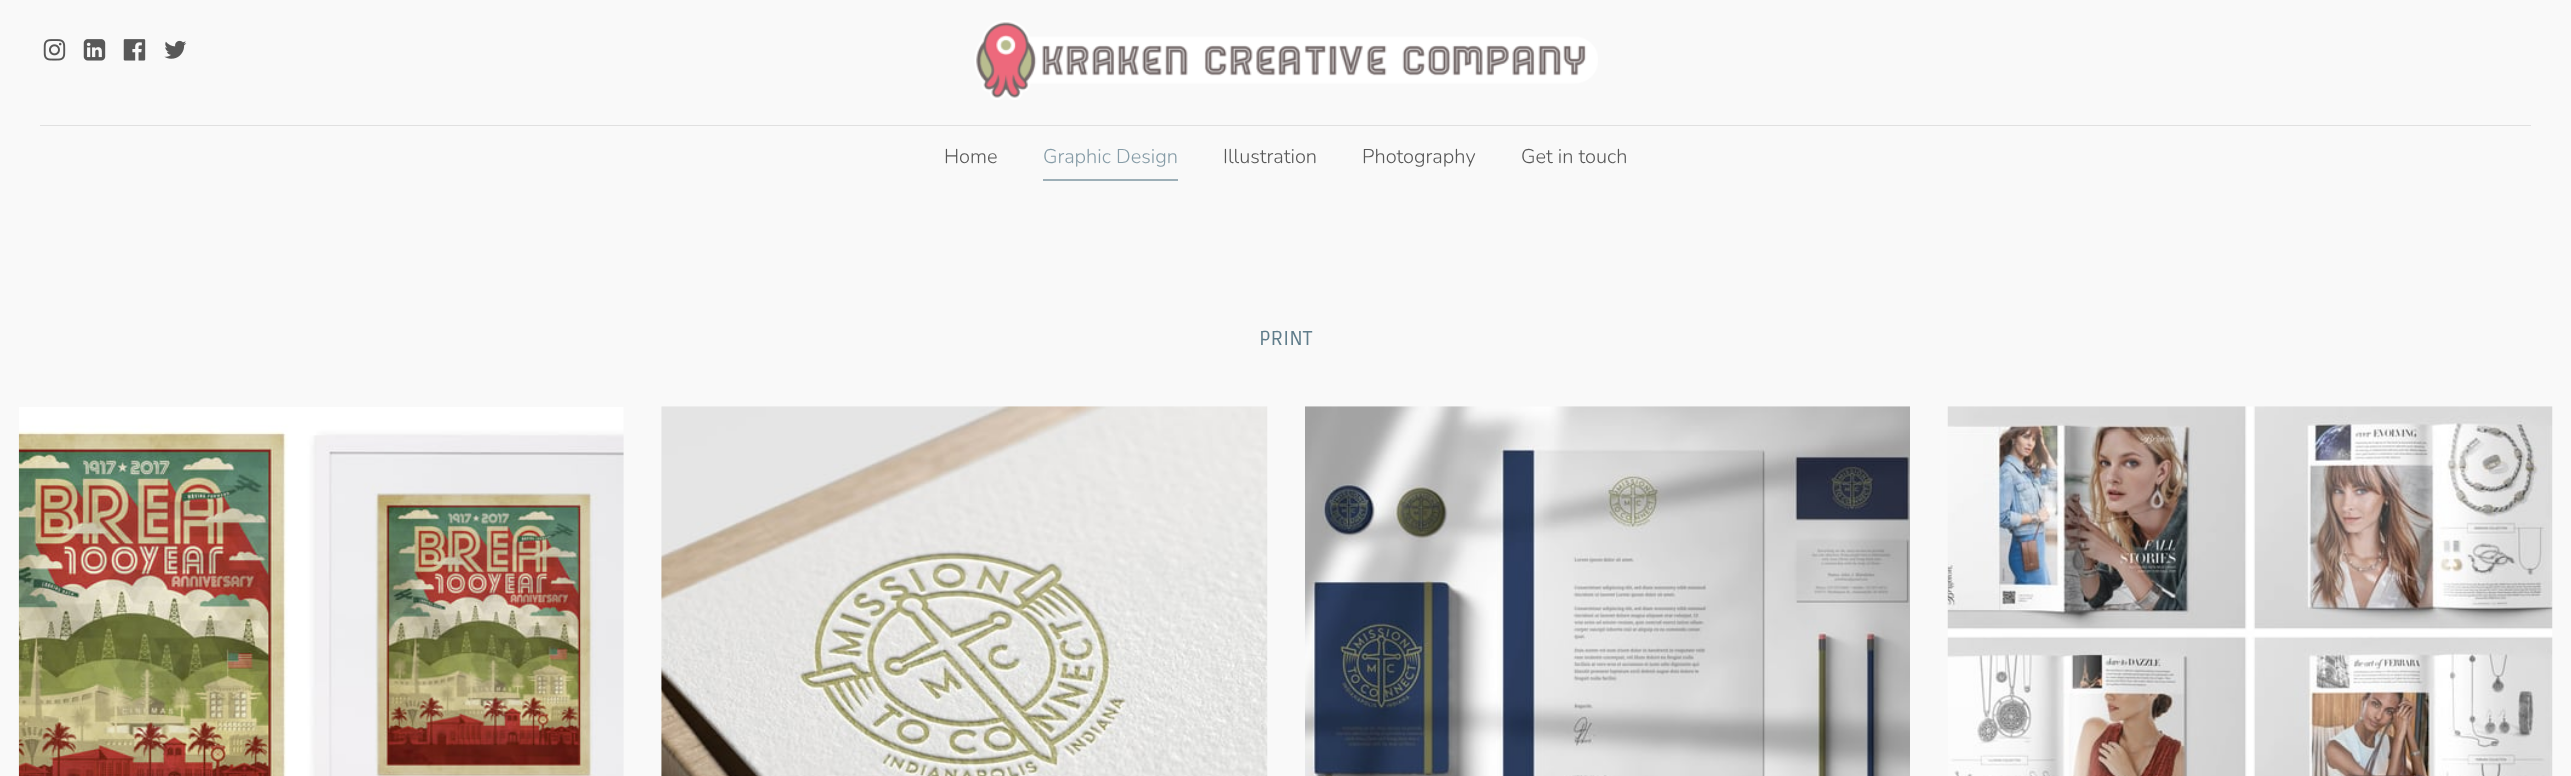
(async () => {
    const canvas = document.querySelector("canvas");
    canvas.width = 2571;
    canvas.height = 776;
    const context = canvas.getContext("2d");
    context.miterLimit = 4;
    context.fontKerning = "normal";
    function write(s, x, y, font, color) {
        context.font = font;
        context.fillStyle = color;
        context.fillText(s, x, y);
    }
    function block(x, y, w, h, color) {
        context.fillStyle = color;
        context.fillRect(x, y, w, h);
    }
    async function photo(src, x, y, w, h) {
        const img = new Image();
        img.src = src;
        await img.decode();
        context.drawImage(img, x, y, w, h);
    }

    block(0, 0, 2571, 776, "rgb(249, 249, 249)");
    await photo("media/1.png", 974, 20, 624, 80);
    block(40, 125, 2491, 1, "rgb(224, 224, 224)");
    await photo("media/2.png", 43, 39, 23, 22);
    await photo("media/3.png", 83, 39, 23, 22);
    await photo("media/4.png", 123, 39, 23, 22);
    await photo("media/5.png", 164, 40, 23, 19);
    write("Home", 944, 163, "200 20px Nunito", "rgb(87, 87, 87)");
    write("Graphic Design", 1043, 163, "200 20px Nunito", "rgb(134, 156, 167)");
    block(1043, 179, 135, 2, "rgb(157, 175, 183)");
    write("Illustration", 1223, 163, "200 20px Nunito", "rgb(87, 87, 87)");
    write("Photography", 1362, 163, "200 20px Nunito", "rgb(87, 87, 87)");
    write("Get in touch", 1521, 163, "200 20px Nunito", "rgb(87, 87, 87)");
    write("PRINT", 1259, 345, "20px Ruda", "rgb(96, 125, 139)");
    await photo("media/6.png", 18, 407, 606, 369);
    await photo("media/7.png", 661, 406, 607, 370);
    await photo("media/8.png", 1305, 406, 605, 370);
    await photo("media/9.png", 1947, 406, 606, 370);
})();
